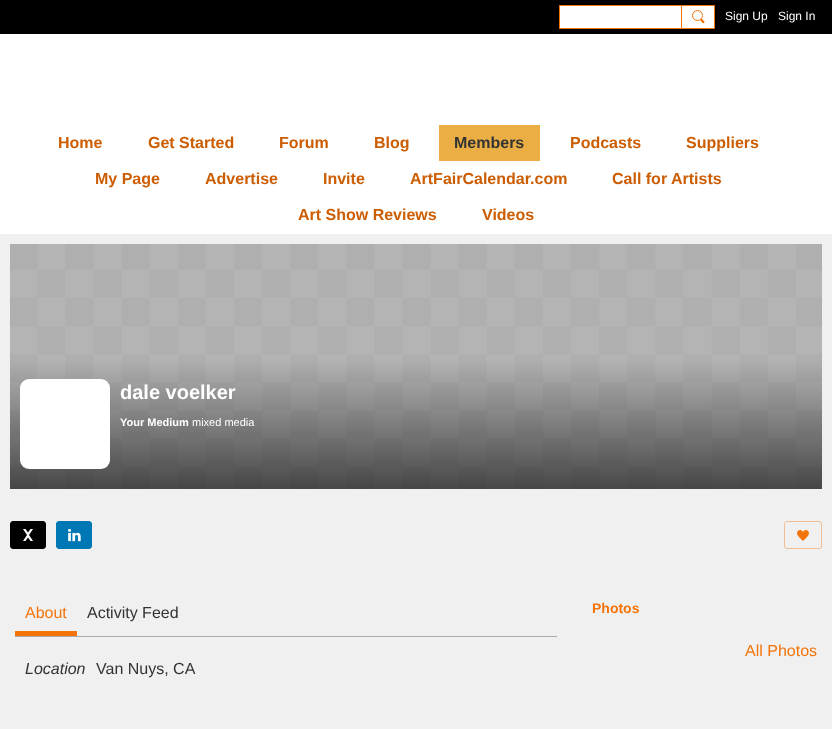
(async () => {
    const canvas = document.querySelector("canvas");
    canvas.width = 832;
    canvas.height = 729;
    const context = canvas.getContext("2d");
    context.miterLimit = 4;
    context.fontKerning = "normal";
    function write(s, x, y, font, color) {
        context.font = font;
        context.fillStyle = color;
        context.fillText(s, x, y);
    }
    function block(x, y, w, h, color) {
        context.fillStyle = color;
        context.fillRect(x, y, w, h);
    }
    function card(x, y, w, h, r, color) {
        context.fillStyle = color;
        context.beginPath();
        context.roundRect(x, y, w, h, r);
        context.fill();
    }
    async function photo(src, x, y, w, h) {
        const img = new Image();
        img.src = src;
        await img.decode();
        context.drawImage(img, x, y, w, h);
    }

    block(0, 0, 832, 729, "rgb(255, 255, 255)");
    block(0, 0, 832, 34, "rgb(0, 0, 0)");
    context.fillStyle = "rgb(255, 255, 255)";
    context.beginPath();
    context.rect(559.5, 5.5, 122, 23);
    context.fill();
    context.strokeStyle = "rgb(245, 116, 10)";
    context.stroke();
    context.beginPath();
    context.rect(681.5, 5.5, 33, 23);
    context.fill();
    context.stroke();
    context.beginPath();
    context.arc(697.5, 15.5, 5, 0, Math.PI * 2);
    context.stroke();
    context.fillStyle = "rgb(245, 116, 10)";
    context.beginPath();
    context.moveTo(702, 19);
    context.lineTo(704.5, 21.5);
    context.bezierCurveTo(704.5, 22, 704.5, 22.5, 704, 23);
    context.bezierCurveTo(703, 24, 701.5, 21.5, 700.5, 20.5);
    context.bezierCurveTo(700, 19.5, 701, 18.5, 702, 19);
    context.closePath();
    context.fill();
    write("Sign Up", 725, 20, "12px Liberation Sans", "rgb(255, 255, 255)");
    write("Sign In", 778, 20, "12px Liberation Sans", "rgb(255, 255, 255)");
    write("Home", 58, 148, "bold 16px Liberation Sans", "rgb(204, 93, 2)");
    write("Get Started", 148, 148, "bold 16px Liberation Sans", "rgb(204, 93, 2)");
    write("Forum", 279, 148, "bold 16px Liberation Sans", "rgb(204, 93, 2)");
    write("Blog", 374, 148, "bold 16px Liberation Sans", "rgb(204, 93, 2)");
    block(439, 125, 101, 36, "rgb(235, 174, 68)");
    write("Members", 454, 148, "bold 16px Liberation Sans", "rgb(51, 51, 51)");
    write("Podcasts", 570, 148, "bold 16px Liberation Sans", "rgb(204, 93, 2)");
    write("Suppliers", 686, 148, "bold 16px Liberation Sans", "rgb(204, 93, 2)");
    write("My Page", 95, 184, "bold 16px Liberation Sans", "rgb(204, 93, 2)");
    write("Advertise", 205, 184, "bold 16px Liberation Sans", "rgb(204, 93, 2)");
    write("Invite", 323, 184, "bold 16px Liberation Sans", "rgb(204, 93, 2)");
    write("ArtFairCalendar.com", 410, 184, "bold 16px Liberation Sans", "rgb(204, 93, 2)");
    write("Call for Artists", 612, 184, "bold 16px Liberation Sans", "rgb(204, 93, 2)");
    write("Art Show Reviews", 298, 220, "bold 16px Liberation Sans", "rgb(204, 93, 2)");
    write("Videos", 482, 220, "bold 16px Liberation Sans", "rgb(204, 93, 2)");
    block(0, 234, 832, 495, "rgb(240, 240, 240)");
    await photo("media/1.png", 10, 244, 812, 245);
    card(20, 379, 90, 90, 9, "rgb(255, 255, 255)");
    write("dale voelker", 120, 399, "bold 20px Liberation Sans", "rgb(255, 255, 255)");
    write("Your Medium", 120, 426, "bold 11px Liberation Sans", "rgb(255, 255, 255)");
    write("mixed media", 192, 426, "11px Liberation Sans", "rgb(255, 255, 255)");
    await photo("media/2.png", 10, 521, 36, 28);
    await photo("media/3.png", 56, 521, 36, 28);
    context.beginPath();
    context.roundRect(784.5, 521.5, 37, 27, 2.5);
    context.strokeStyle = "rgb(242, 190, 148)";
    context.stroke();
    await photo("media/4.png", 797, 530, 12, 11);
    block(15, 636, 542, 1, "rgb(170, 170, 170)");
    block(15, 631, 62, 5, "rgb(245, 116, 10)");
    write("About", 25, 618, "16px Liberation Sans", "rgb(245, 116, 10)");
    write("Activity Feed", 87, 618, "16px Liberation Sans", "rgb(51, 51, 51)");
    write("Location", 25, 674, "italic 16px Liberation Sans", "rgb(51, 51, 51)");
    write("Van Nuys, CA", 96, 674, "16px Liberation Sans", "rgb(51, 51, 51)");
    write("Photos", 592, 613, "bold 14px Liberation Sans", "rgb(245, 116, 10)");
    write("All Photos", 745, 656, "16px Liberation Sans", "rgb(245, 116, 10)");
})();
